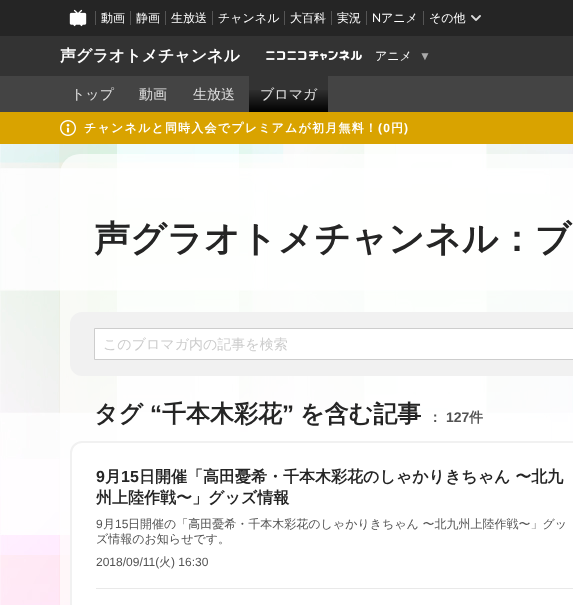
(async () => {
    const canvas = document.querySelector("canvas");
    canvas.width = 573;
    canvas.height = 605;
    const context = canvas.getContext("2d");
    context.miterLimit = 4;
    context.fontKerning = "normal";
    function write(s, x, y, font, color) {
        context.font = font;
        context.fillStyle = color;
        context.fillText(s, x, y);
    }
    function block(x, y, w, h, color) {
        context.fillStyle = color;
        context.fillRect(x, y, w, h);
    }
    function card(x, y, w, h, r, color) {
        context.fillStyle = color;
        context.beginPath();
        context.roundRect(x, y, w, h, r);
        context.fill();
    }
    async function photo(src, x, y, w, h) {
        const img = new Image();
        img.src = src;
        await img.decode();
        context.drawImage(img, x, y, w, h);
    }

    block(0, 0, 573, 605, "rgb(255, 255, 255)");
    block(0, 0, 573, 36, "rgb(37, 37, 37)");
    await photo("media/1.png", 69, 9, 18, 18);
    block(95, 11, 1, 14, "rgb(85, 85, 85)");
    write("動画", 101, 22, "500 12px WenQuanYi Zen Hei", "rgb(255, 255, 255)");
    block(130, 11, 1, 14, "rgb(85, 85, 85)");
    write("静画", 136, 22, "500 12px WenQuanYi Zen Hei", "rgb(255, 255, 255)");
    block(165, 11, 1, 14, "rgb(85, 85, 85)");
    write("生放送", 171, 22, "500 12px WenQuanYi Zen Hei", "rgb(255, 255, 255)");
    block(212, 11, 1, 14, "rgb(85, 85, 85)");
    write("チャンネル", 218, 22, "500 12px WenQuanYi Zen Hei", "rgb(255, 255, 255)");
    block(284, 11, 1, 14, "rgb(85, 85, 85)");
    write("大百科", 290, 22, "500 12px WenQuanYi Zen Hei", "rgb(255, 255, 255)");
    block(331, 11, 1, 14, "rgb(85, 85, 85)");
    write("実況", 337, 22, "500 12px WenQuanYi Zen Hei", "rgb(255, 255, 255)");
    block(366, 11, 1, 14, "rgb(85, 85, 85)");
    write("N", 372, 22, "12px Lato", "rgb(255, 255, 255)");
    write("アニメ", 381, 22, "500 12px WenQuanYi Zen Hei", "rgb(255, 255, 255)");
    block(423, 11, 1, 14, "rgb(85, 85, 85)");
    write("その他", 429, 22, "500 12px WenQuanYi Zen Hei", "rgb(255, 255, 255)");
    await photo("media/2.png", 471, 15, 10, 6);
    block(0, 36, 573, 40, "rgb(51, 51, 51)");
    write("声グラオトメチャンネル", 60, 61, "bold 16px WenQuanYi Zen Hei", "rgb(255, 255, 255)");
    await photo("media/3.png", 266, 50, 96, 11);
    write("アニメ", 375, 60, "500 12px WenQuanYi Zen Hei", "rgb(255, 255, 255)");
    write("▼", 419, 60, "12px Liberation Sans", "rgb(170, 170, 170)");
    block(0, 76, 573, 36, "rgb(68, 68, 68)");
    write("トップ", 71, 99, "500 14px WenQuanYi Zen Hei", "rgb(224, 224, 224)");
    write("動画", 139, 99, "500 14px WenQuanYi Zen Hei", "rgb(224, 224, 224)");
    write("生放送", 193, 99, "500 14px WenQuanYi Zen Hei", "rgb(224, 224, 224)");
    block(249, 76, 79, 36, "rgb(51, 51, 51)");
    await photo("media/4.png", 249, 90, 79, 22);
    write("ブロマガ", 260, 99, "500 14px WenQuanYi Zen Hei", "rgb(224, 224, 224)");
    block(0, 112, 573, 32, "rgb(217, 163, 0)");
    await photo("media/5.png", 60, 120, 16, 16);
    context.letterSpacing = "1.2px";
    write("チャンネルと同時入会でプレミアムが初月無料！", 84, 132, "bold 12px WenQuanYi Zen Hei", "rgb(255, 255, 255)");
    write("(0", 378, 132, "bold 12px Liberation Sans", "rgb(255, 255, 255)");
    write("円", 391, 132, "bold 12px WenQuanYi Zen Hei", "rgb(255, 255, 255)");
    write(")", 404, 132, "bold 12px Liberation Sans", "rgb(255, 255, 255)");
    await photo("media/6.png", 0, 144, 573, 461);
    card(60, 154, 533, 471, 20, "rgba(255, 255, 255, 0.7)");
    context.letterSpacing = "0px";
    write("声グラオトメチャンネル：ブ", 94, 251, "bold 36px WenQuanYi Zen Hei", "rgb(37, 37, 37)");
    card(70, 312, 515, 64, 12, "rgb(241, 241, 241)");
    context.fillStyle = "rgb(255, 255, 255)";
    context.beginPath();
    context.rect(94.5, 328.5, 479, 31);
    context.fill();
    context.strokeStyle = "rgb(205, 205, 205)";
    context.stroke();
    write("このブロマガ内の記事を検索", 103, 349, "500 14px WenQuanYi Zen Hei", "rgb(205, 205, 205)");
    write("タグ", 94, 422, "bold 24px WenQuanYi Zen Hei", "rgb(37, 37, 37)");
    write("“", 150, 422, "bold 24px Liberation Sans", "rgb(37, 37, 37)");
    write("千本木彩花", 162, 422, "bold 24px WenQuanYi Zen Hei", "rgb(37, 37, 37)");
    write("”", 282, 422, "bold 24px Liberation Sans", "rgb(37, 37, 37)");
    write("を含む記事", 300, 422, "bold 24px WenQuanYi Zen Hei", "rgb(37, 37, 37)");
    write("：", 428, 422, "bold 14px WenQuanYi Zen Hei", "rgb(82, 82, 82)");
    write("127", 446, 422, "bold 14px Liberation Sans", "rgb(82, 82, 82)");
    write("件", 469, 422, "bold 14px WenQuanYi Zen Hei", "rgb(82, 82, 82)");
    context.fillStyle = "rgb(255, 255, 255)";
    context.beginPath();
    context.roundRect(71, 442, 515, 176, 11);
    context.fill();
    context.strokeStyle = "rgb(241, 241, 241)";
    context.lineWidth = 2;
    context.stroke();
    write("9", 96, 482, "bold 16px Liberation Sans", "rgb(37, 37, 37)");
    write("月", 105, 482, "bold 16px WenQuanYi Zen Hei", "rgb(37, 37, 37)");
    write("15", 121, 482, "bold 16px Liberation Sans", "rgb(37, 37, 37)");
    write("日開催「高田憂希・千本木彩花のしゃかりきちゃん 〜北九", 139, 482, "bold 16px WenQuanYi Zen Hei", "rgb(37, 37, 37)");
    write("州上陸作戦〜」グッズ情報", 96, 503, "bold 16px WenQuanYi Zen Hei", "rgb(37, 37, 37)");
    write("9", 96, 528, "12px Liberation Sans", "rgb(82, 82, 82)");
    write("月", 103, 528, "500 12px WenQuanYi Zen Hei", "rgb(82, 82, 82)");
    write("15", 115, 528, "12px Liberation Sans", "rgb(82, 82, 82)");
    write("日開催の「高田憂希・千本木彩花のしゃかりきちゃん 〜北九州上陸作戦〜」グッ", 128, 528, "500 12px WenQuanYi Zen Hei", "rgb(82, 82, 82)");
    write("ズ情報のお知らせです。", 96, 543, "500 12px WenQuanYi Zen Hei", "rgb(82, 82, 82)");
    write("2018/09/11(", 96, 566, "12px Liberation Sans", "rgb(82, 82, 82)");
    write("火", 159, 566, "500 12px WenQuanYi Zen Hei", "rgb(82, 82, 82)");
    write(") 16:30", 171, 566, "12px Liberation Sans", "rgb(82, 82, 82)");
    block(96, 588, 477, 1, "rgb(233, 233, 233)");
})();
